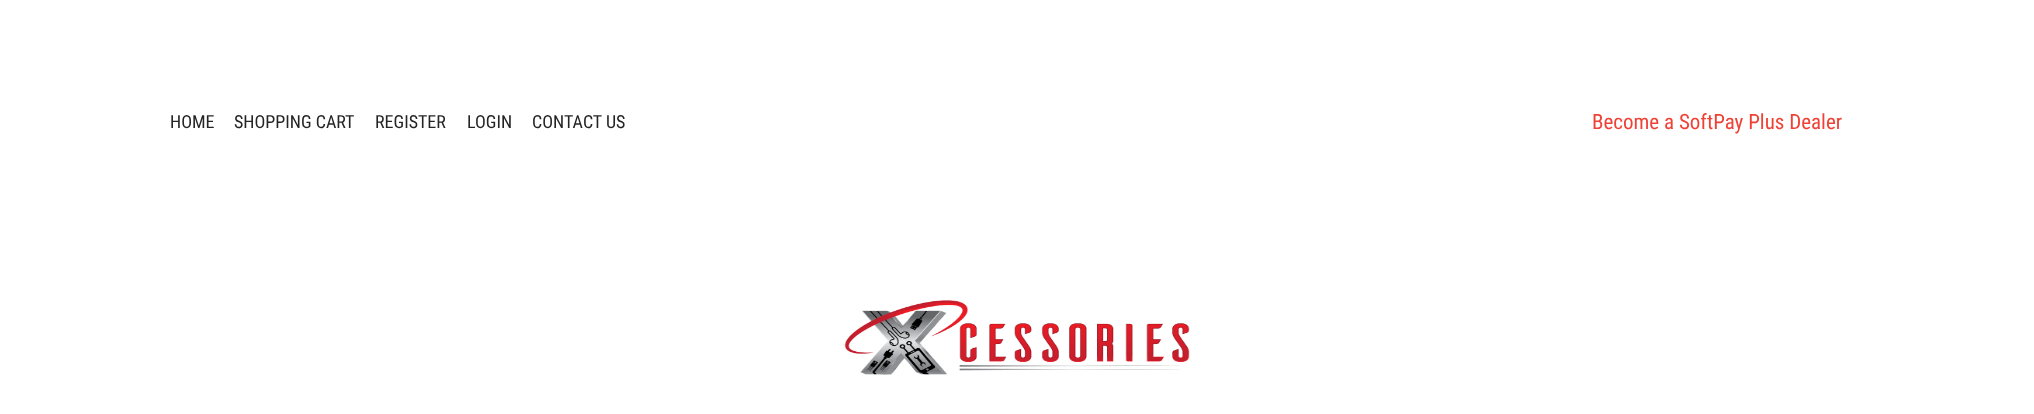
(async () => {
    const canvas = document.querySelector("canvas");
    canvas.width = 2034;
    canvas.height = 414;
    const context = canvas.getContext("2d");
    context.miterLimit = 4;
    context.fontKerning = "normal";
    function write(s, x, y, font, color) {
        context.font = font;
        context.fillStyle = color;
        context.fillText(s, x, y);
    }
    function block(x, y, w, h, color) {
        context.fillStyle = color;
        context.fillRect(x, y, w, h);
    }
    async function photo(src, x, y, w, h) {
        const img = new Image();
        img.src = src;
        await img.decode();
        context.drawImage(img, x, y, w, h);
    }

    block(0, 0, 2034, 414, "rgb(255, 255, 255)");
    write("HOME", 170, 128, "18px Roboto Condensed", "rgb(37, 36, 36)");
    write("SHOPPING CART", 234, 128, "18px Roboto Condensed", "rgb(37, 36, 36)");
    write("REGISTER", 375, 128, "18px Roboto Condensed", "rgb(37, 36, 36)");
    write("LOGIN", 467, 128, "18px Roboto Condensed", "rgb(37, 36, 36)");
    write("CONTACT US", 532, 128, "18px Roboto Condensed", "rgb(37, 36, 36)");
    write("Become a SoftPay Plus Dealer", 1592, 129, "21px Roboto Condensed", "rgb(239, 65, 53)");
    await photo("media/1.png", 844, 300, 346, 75);
})();
